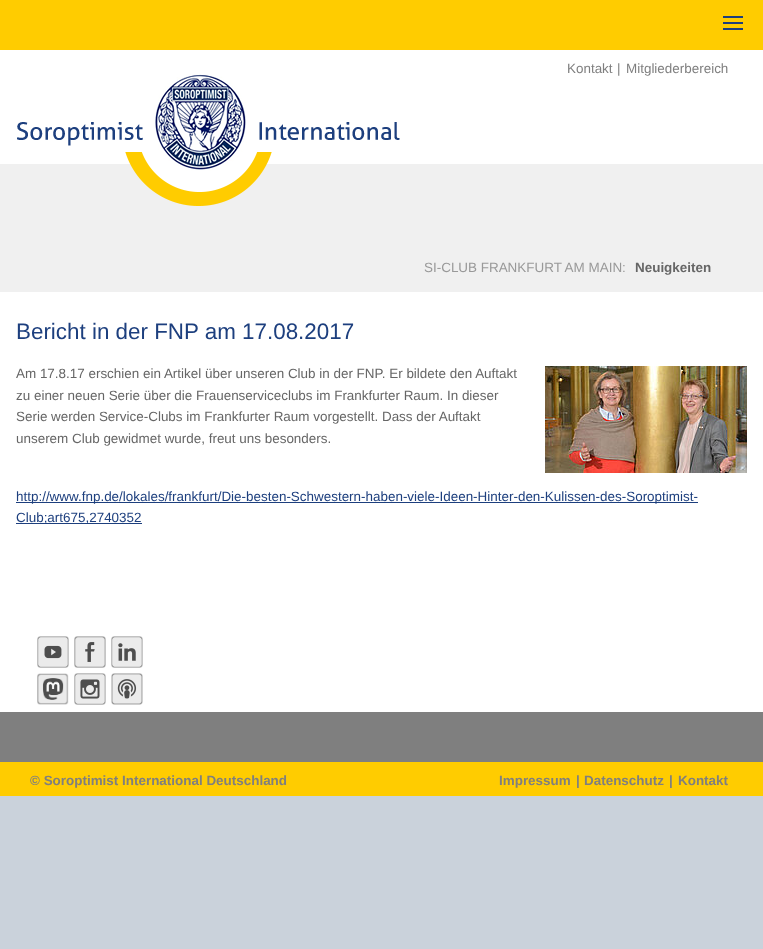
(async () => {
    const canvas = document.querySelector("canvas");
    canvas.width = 763;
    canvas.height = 949;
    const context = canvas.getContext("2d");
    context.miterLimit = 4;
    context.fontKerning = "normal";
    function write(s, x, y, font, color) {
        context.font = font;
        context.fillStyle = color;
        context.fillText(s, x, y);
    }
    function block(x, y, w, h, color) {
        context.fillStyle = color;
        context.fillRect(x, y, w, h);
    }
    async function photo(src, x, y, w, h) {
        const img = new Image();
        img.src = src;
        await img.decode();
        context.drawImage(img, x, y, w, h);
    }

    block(0, 0, 763, 949, "rgb(202, 210, 219)");
    block(0, 50, 763, 662, "rgb(255, 255, 255)");
    block(0, 0, 763, 50, "rgb(255, 204, 0)");
    block(723, 16, 20, 2, "rgb(29, 63, 126)");
    block(723, 22, 20, 2, "rgb(29, 63, 126)");
    block(723, 28, 20, 2, "rgb(29, 63, 126)");
    write("Kontakt", 567, 73, "13.45px Liberation Sans", "rgb(127, 127, 127)");
    write("|", 617, 73, "13.45px Liberation Sans", "rgb(127, 127, 127)");
    write("Mitgliederbereich", 626, 73, "13.45px Liberation Sans", "rgb(127, 127, 127)");
    block(0, 164, 763, 128, "rgb(240, 240, 240)");
    await photo("media/1.png", 17, 74, 383, 132);
    write("SI-CLUB FRANKFURT AM MAIN:", 424, 272, "13.45px Liberation Sans", "rgb(153, 153, 153)");
    write("Neuigkeiten", 635, 272, "bold 13.45px Liberation Sans", "rgb(102, 102, 102)");
    write("Bericht in der FNP am 17.08.2017", 16, 339, "22.4px Liberation Sans", "rgb(29, 63, 126)");
    write("Am 17.8.17 erschien ein Artikel über unseren Club in der FNP. Er bildete den Auftakt", 16, 378, "13.45px Liberation Sans", "rgb(102, 102, 102)");
    write("zu einer neuen Serie über die Frauenserviceclubs im Frankfurter Raum. In dieser", 16, 400, "13.45px Liberation Sans", "rgb(102, 102, 102)");
    write("Serie werden Service-Clubs im Frankfurter Raum vorgestellt. Dass der Auftakt", 16, 421, "13.45px Liberation Sans", "rgb(102, 102, 102)");
    write("unserem Club gewidmet wurde, freut uns besonders.", 16, 443, "13.45px Liberation Sans", "rgb(102, 102, 102)");
    await photo("media/2.png", 545, 366, 202, 107);
    block(16, 502, 682, 1, "rgb(29, 63, 126)");
    write("http://www.fnp.de/lokales/frankfurt/Die-besten-Schwestern-haben-viele-Ideen-Hinter-den-Kulissen-des-Soroptimist-", 16, 501, "13.45px Liberation Sans", "rgb(29, 63, 126)");
    block(16, 523, 126, 1, "rgb(29, 63, 126)");
    write("Club;art675,2740352", 16, 522, "13.45px Liberation Sans", "rgb(29, 63, 126)");
    await photo("media/3.png", 37, 636, 32, 32);
    await photo("media/4.png", 74, 636, 32, 32);
    await photo("media/5.png", 111, 636, 32, 32);
    await photo("media/6.png", 37, 673, 32, 32);
    await photo("media/7.png", 74, 673, 32, 32);
    await photo("media/8.png", 111, 673, 32, 32);
    block(0, 712, 763, 50, "rgb(127, 127, 127)");
    block(0, 762, 763, 34, "rgb(255, 204, 0)");
    write("© Soroptimist International Deutschland", 30, 785, "bold 13.45px Liberation Sans", "rgb(127, 127, 127)");
    write("Impressum", 499, 785, "bold 13.45px Liberation Sans", "rgb(127, 127, 127)");
    write("|", 576, 785, "bold 13.45px Liberation Sans", "rgb(127, 127, 127)");
    write("Datenschutz", 584, 785, "bold 13.45px Liberation Sans", "rgb(127, 127, 127)");
    write("|", 669, 785, "bold 13.45px Liberation Sans", "rgb(127, 127, 127)");
    write("Kontakt", 678, 785, "bold 13.45px Liberation Sans", "rgb(127, 127, 127)");
})();
